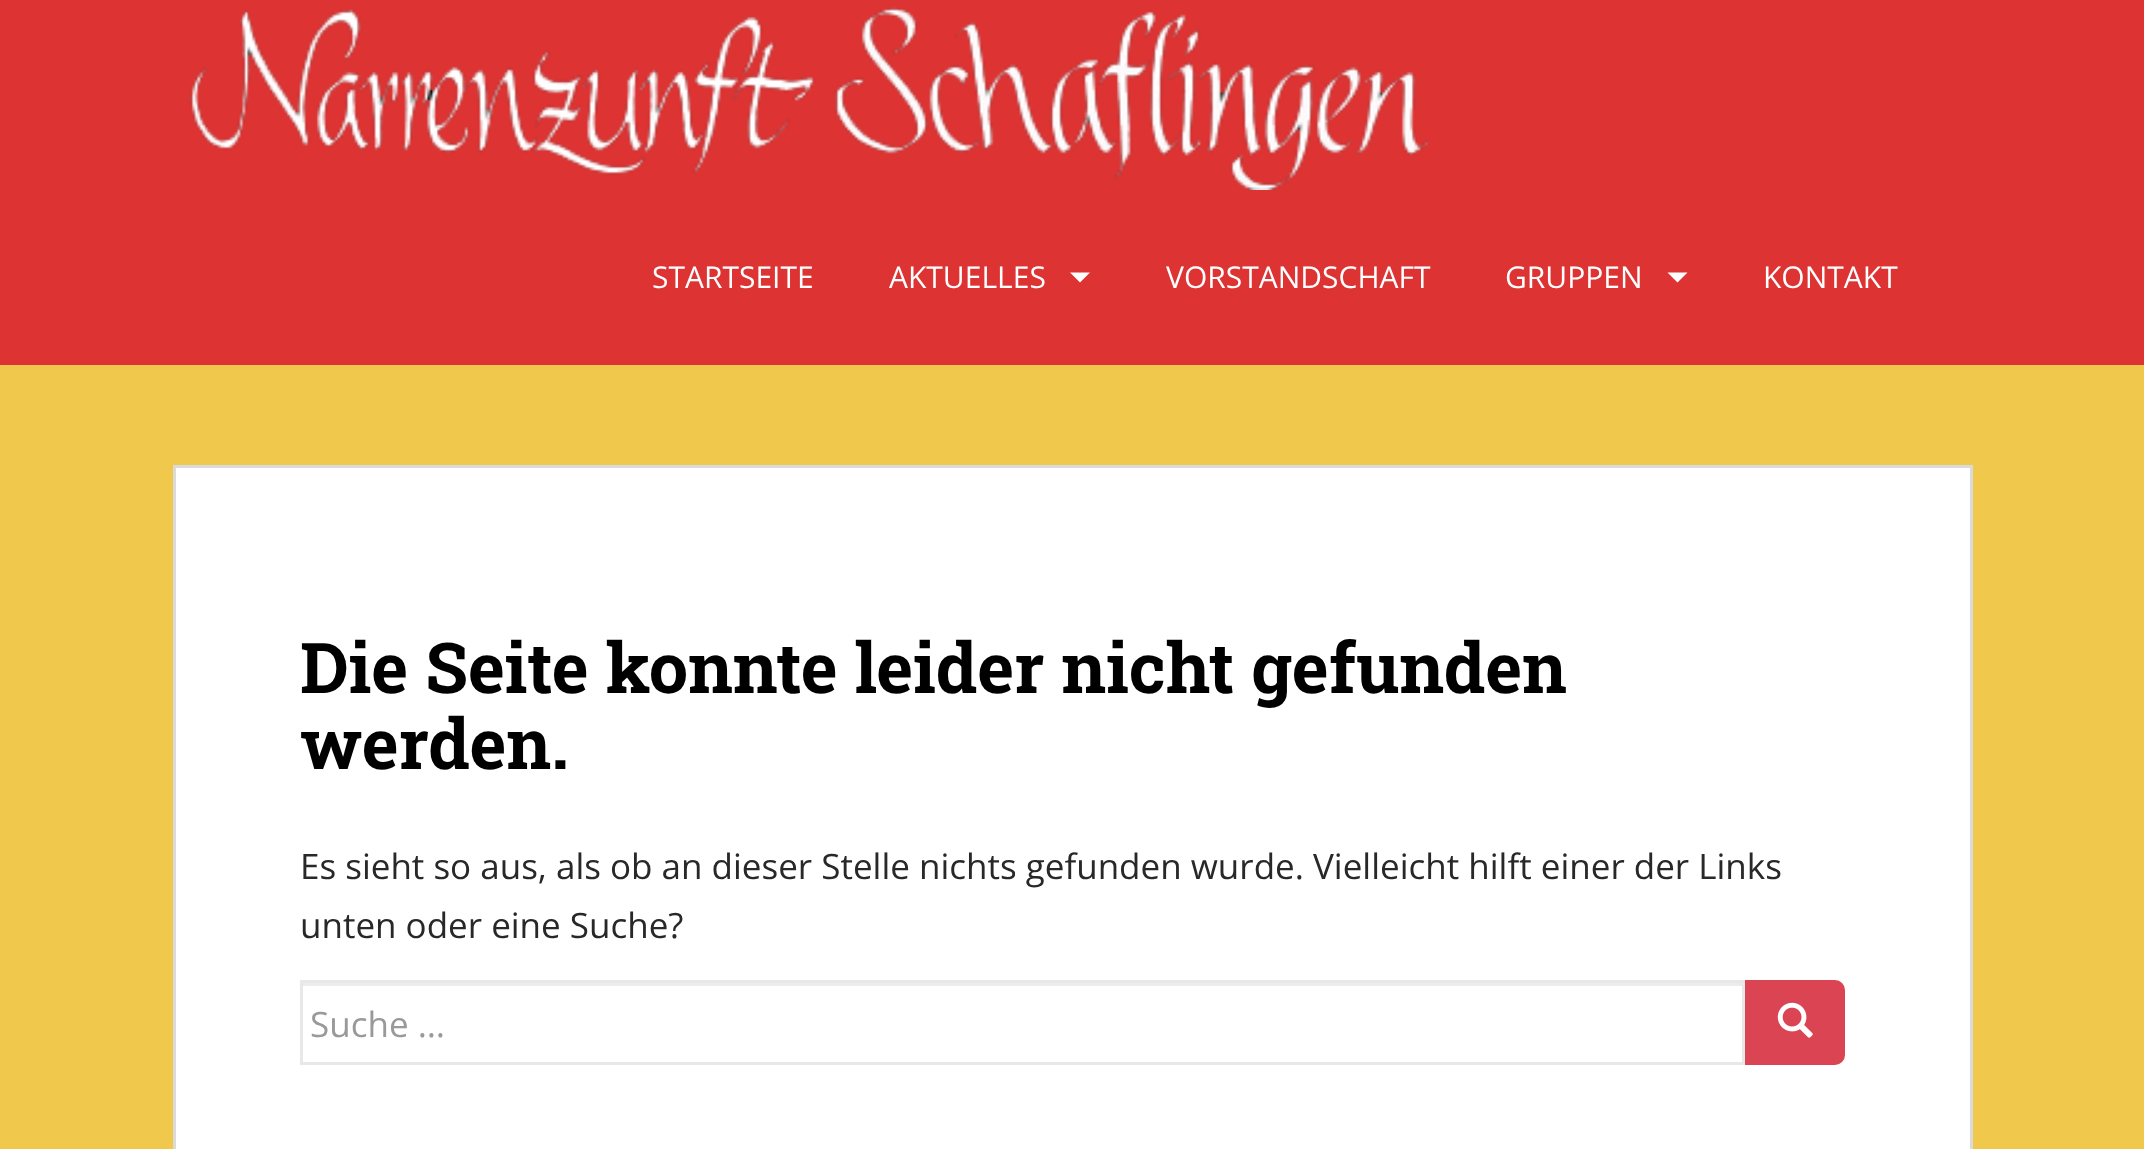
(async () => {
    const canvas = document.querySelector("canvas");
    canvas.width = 2144;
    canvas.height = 1149;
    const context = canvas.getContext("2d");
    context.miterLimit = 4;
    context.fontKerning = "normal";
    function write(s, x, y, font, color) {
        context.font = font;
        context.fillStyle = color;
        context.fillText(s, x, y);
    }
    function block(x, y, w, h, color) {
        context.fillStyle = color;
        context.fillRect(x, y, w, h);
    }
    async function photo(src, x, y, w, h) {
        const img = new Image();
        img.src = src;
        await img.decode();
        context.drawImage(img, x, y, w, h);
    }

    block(0, 0, 2144, 1149, "rgb(240, 200, 75)");
    block(0, 0, 2144, 365, "rgb(221, 51, 51)");
    await photo("media/1.png", 189, 7, 1240, 183);
    write("STARTSEITE", 652, 288, "30px Open Sans", "rgb(255, 255, 255)");
    write("AKTUELLES", 889, 288, "30px Open Sans", "rgb(255, 255, 255)");
    context.beginPath();
    context.moveTo(1070, 272.5);
    context.lineTo(1090, 272.5);
    context.lineTo(1080, 282.5);
    context.closePath();
    context.fill();
    write("VORSTANDSCHAFT", 1166, 288, "30px Open Sans", "rgb(255, 255, 255)");
    write("GRUPPEN", 1505, 288, "30px Open Sans", "rgb(255, 255, 255)");
    context.beginPath();
    context.moveTo(1667.5, 272.5);
    context.lineTo(1687.5, 272.5);
    context.lineTo(1677.5, 282.5);
    context.closePath();
    context.fill();
    write("KONTAKT", 1763, 288, "30px Open Sans", "rgb(255, 255, 255)");
    context.beginPath();
    context.rect(174.5, 466.5, 1797, 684);
    context.fill();
    context.strokeStyle = "rgb(218, 218, 218)";
    context.lineWidth = 3;
    context.stroke();
    write("Die Seite konnte leider nicht gefunden", 300, 693, "bold 70px Roboto Slab", "rgb(0, 0, 0)");
    write("werden.", 300, 769, "bold 70px Roboto Slab", "rgb(0, 0, 0)");
    write("Es sieht so aus, als ob an dieser Stelle nichts gefunden wurde. Vielleicht hilft einer der Links", 300, 879, "35px Open Sans", "rgb(40, 40, 40)");
    write("unten oder eine Suche?", 300, 938, "35px Open Sans", "rgb(40, 40, 40)");
    block(303, 983, 1440, 3, "rgb(236, 236, 236)");
    context.strokeStyle = "rgb(232, 232, 232)";
    context.strokeRect(301.5, 981.5, 1442, 82);
    write("Suche …", 310, 1037, "35px Open Sans", "rgb(153, 153, 153)");
    context.fillStyle = "rgb(218, 68, 83)";
    context.beginPath();
    context.roundRect(1746.5, 981.5, 97, 82, [0, 8.5, 8.5, 0]);
    context.fill();
    context.strokeStyle = "rgb(218, 68, 83)";
    context.stroke();
    await photo("media/2.png", 1777, 1002, 36, 36);
})();
